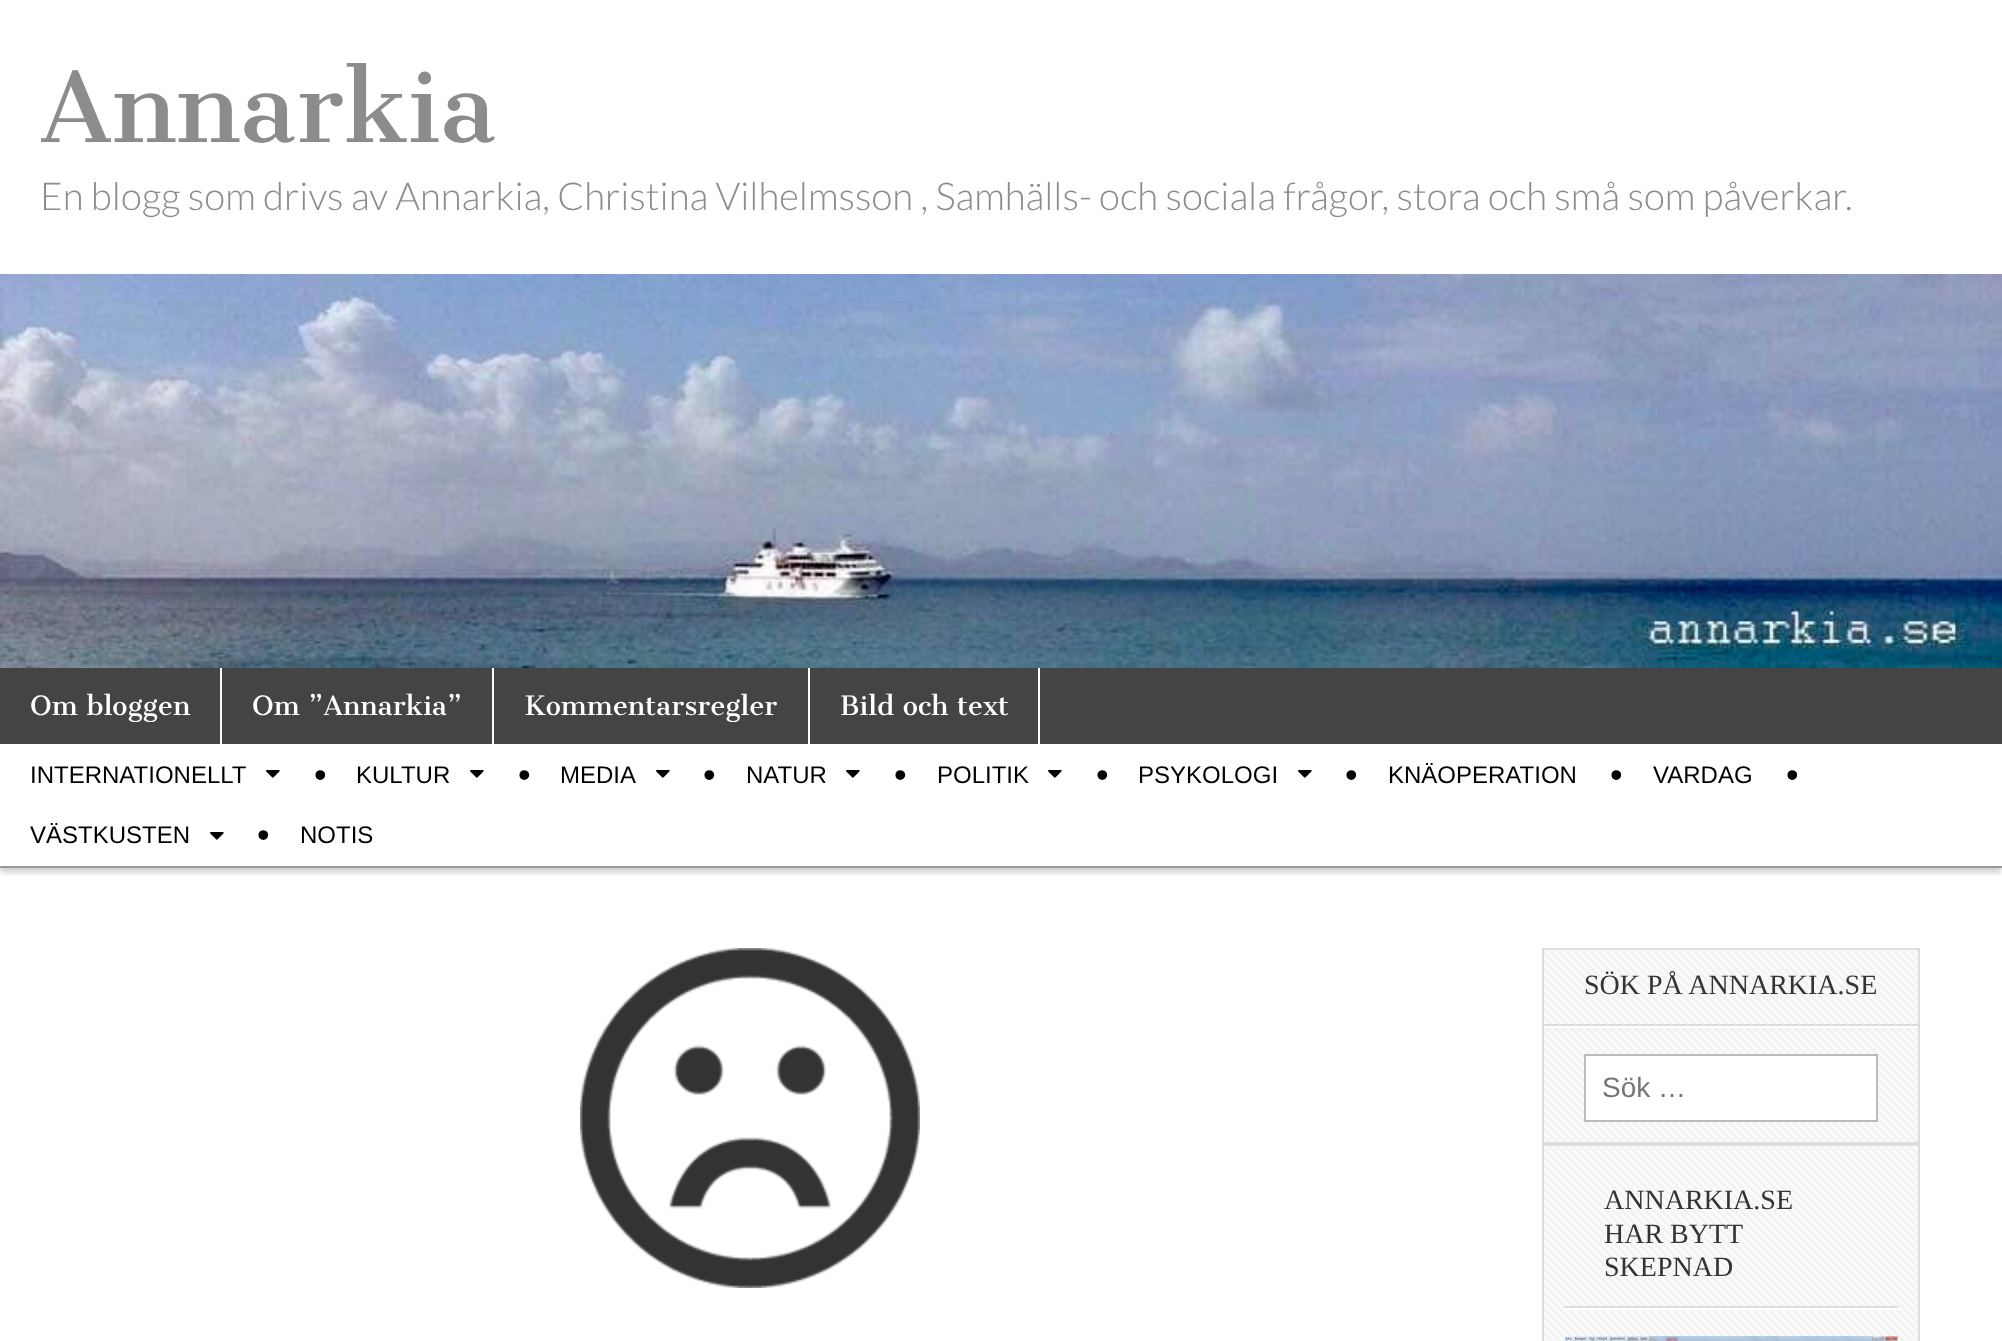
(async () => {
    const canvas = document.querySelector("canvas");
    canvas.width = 2002;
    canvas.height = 1341;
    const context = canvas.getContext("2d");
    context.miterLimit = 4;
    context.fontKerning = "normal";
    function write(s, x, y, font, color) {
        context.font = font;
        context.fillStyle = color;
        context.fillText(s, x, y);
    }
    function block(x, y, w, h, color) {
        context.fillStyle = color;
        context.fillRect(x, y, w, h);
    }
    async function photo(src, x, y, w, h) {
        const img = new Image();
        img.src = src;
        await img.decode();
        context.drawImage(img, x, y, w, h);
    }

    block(0, 0, 2002, 1341, "rgb(255, 255, 255)");
    write("Annarkia", 40, 142, "96px Cantata One", "rgb(140, 140, 140)");
    write("En blogg som drivs av Annarkia, Christina Vilhelmsson , Samhälls- och sociala frågor, stora och små som påverkar.", 40, 210, "300 38.4px Lato", "rgb(140, 140, 140)");
    await photo("media/1.png", 0, 274, 2002, 394);
    block(0, 668, 2002, 76, "rgb(68, 68, 68)");
    context.save();
    context.beginPath();
    context.rect(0, 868, 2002, 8);
    context.clip();
    context.fillStyle = "rgba(0, 0, 0, 0.2)";
    context.filter = "blur(3px)";
    context.beginPath();
    context.rect(0, 748, 2002, 124);
    context.fill();
    context.filter = "none";
    context.restore();
    block(220, 668, 2, 76, "rgb(255, 255, 255)");
    write("Om bloggen", 30, 715, "26px Cantata One", "rgb(255, 255, 255)");
    block(492, 668, 2, 76, "rgb(255, 255, 255)");
    write("Om ”Annarkia”", 252, 715, "26px Cantata One", "rgb(255, 255, 255)");
    block(808, 668, 2, 76, "rgb(255, 255, 255)");
    write("Kommentarsregler", 524, 715, "26px Cantata One", "rgb(255, 255, 255)");
    block(1038, 668, 2, 76, "rgb(255, 255, 255)");
    write("Bild och text", 840, 715, "26px Cantata One", "rgb(255, 255, 255)");
    block(0, 866, 2002, 2, "rgb(153, 153, 153)");
    write("INTERNATIONELLT", 30, 783, "24px Liberation Sans", "rgb(0, 0, 0)");
    await photo("media/2.png", 266, 770, 14, 8);
    write("•", 314, 787, "36px Liberation Sans", "rgb(0, 0, 0)");
    write("KULTUR", 356, 783, "24px Liberation Sans", "rgb(0, 0, 0)");
    await photo("media/2.png", 470, 770, 14, 8);
    write("•", 518, 787, "36px Liberation Sans", "rgb(0, 0, 0)");
    write("MEDIA", 560, 783, "24px Liberation Sans", "rgb(0, 0, 0)");
    await photo("media/2.png", 656, 770, 14, 8);
    write("•", 703, 787, "36px Liberation Sans", "rgb(0, 0, 0)");
    write("NATUR", 746, 783, "24px Liberation Sans", "rgb(0, 0, 0)");
    await photo("media/2.png", 846, 770, 14, 8);
    write("•", 894, 787, "36px Liberation Sans", "rgb(0, 0, 0)");
    write("POLITIK", 937, 783, "24px Liberation Sans", "rgb(0, 0, 0)");
    await photo("media/2.png", 1048, 770, 14, 8);
    write("•", 1096, 787, "36px Liberation Sans", "rgb(0, 0, 0)");
    write("PSYKOLOGI", 1138, 783, "24px Liberation Sans", "rgb(0, 0, 0)");
    await photo("media/2.png", 1298, 770, 14, 8);
    write("•", 1345, 787, "36px Liberation Sans", "rgb(0, 0, 0)");
    write("KNÄOPERATION", 1388, 783, "24px Liberation Sans", "rgb(0, 0, 0)");
    write("•", 1610, 787, "36px Liberation Sans", "rgb(0, 0, 0)");
    write("VARDAG", 1653, 783, "24px Liberation Sans", "rgb(0, 0, 0)");
    write("•", 1786, 787, "36px Liberation Sans", "rgb(0, 0, 0)");
    write("VÄSTKUSTEN", 30, 843, "24px Liberation Sans", "rgb(0, 0, 0)");
    await photo("media/2.png", 210, 832, 14, 8);
    write("•", 257, 847, "36px Liberation Sans", "rgb(0, 0, 0)");
    write("NOTIS", 300, 843, "24px Liberation Sans", "rgb(0, 0, 0)");
    await photo("media/3.png", 580, 948, 340, 340);
    await photo("media/4.png", 1544, 950, 374, 192);
    context.strokeStyle = "rgb(221, 221, 221)";
    context.lineWidth = 2;
    context.strokeRect(1543, 949, 376, 194);
    block(1544, 1026, 374, 2, "rgb(255, 255, 255)");
    block(1544, 1024, 374, 2, "rgb(221, 221, 221)");
    write("SÖK PÅ ANNARKIA.SE", 1584, 994, "28px Liberation Serif", "rgb(51, 51, 51)");
    context.fillStyle = "rgb(255, 255, 255)";
    context.beginPath();
    context.rect(1585, 1055, 292, 66);
    context.fill();
    context.strokeStyle = "rgb(187, 187, 187)";
    context.stroke();
    write("Sök …", 1602, 1097, "28px Liberation Sans", "rgb(117, 117, 117)");
    await photo("media/5.png", 1544, 1146, 374, 195);
    context.strokeStyle = "rgb(221, 221, 221)";
    context.strokeRect(1543, 1145, 376, 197);
    block(1564, 1308, 334, 2, "rgb(255, 255, 255)");
    block(1564, 1306, 334, 2, "rgb(221, 221, 221)");
    write("ANNARKIA.SE", 1604, 1209, "28px Liberation Serif", "rgb(51, 51, 51)");
    write("HAR BYTT", 1604, 1243, "28px Liberation Serif", "rgb(51, 51, 51)");
    write("SKEPNAD", 1604, 1276, "28px Liberation Serif", "rgb(51, 51, 51)");
    await photo("media/6.png", 1564, 1336, 334, 5);
})();
